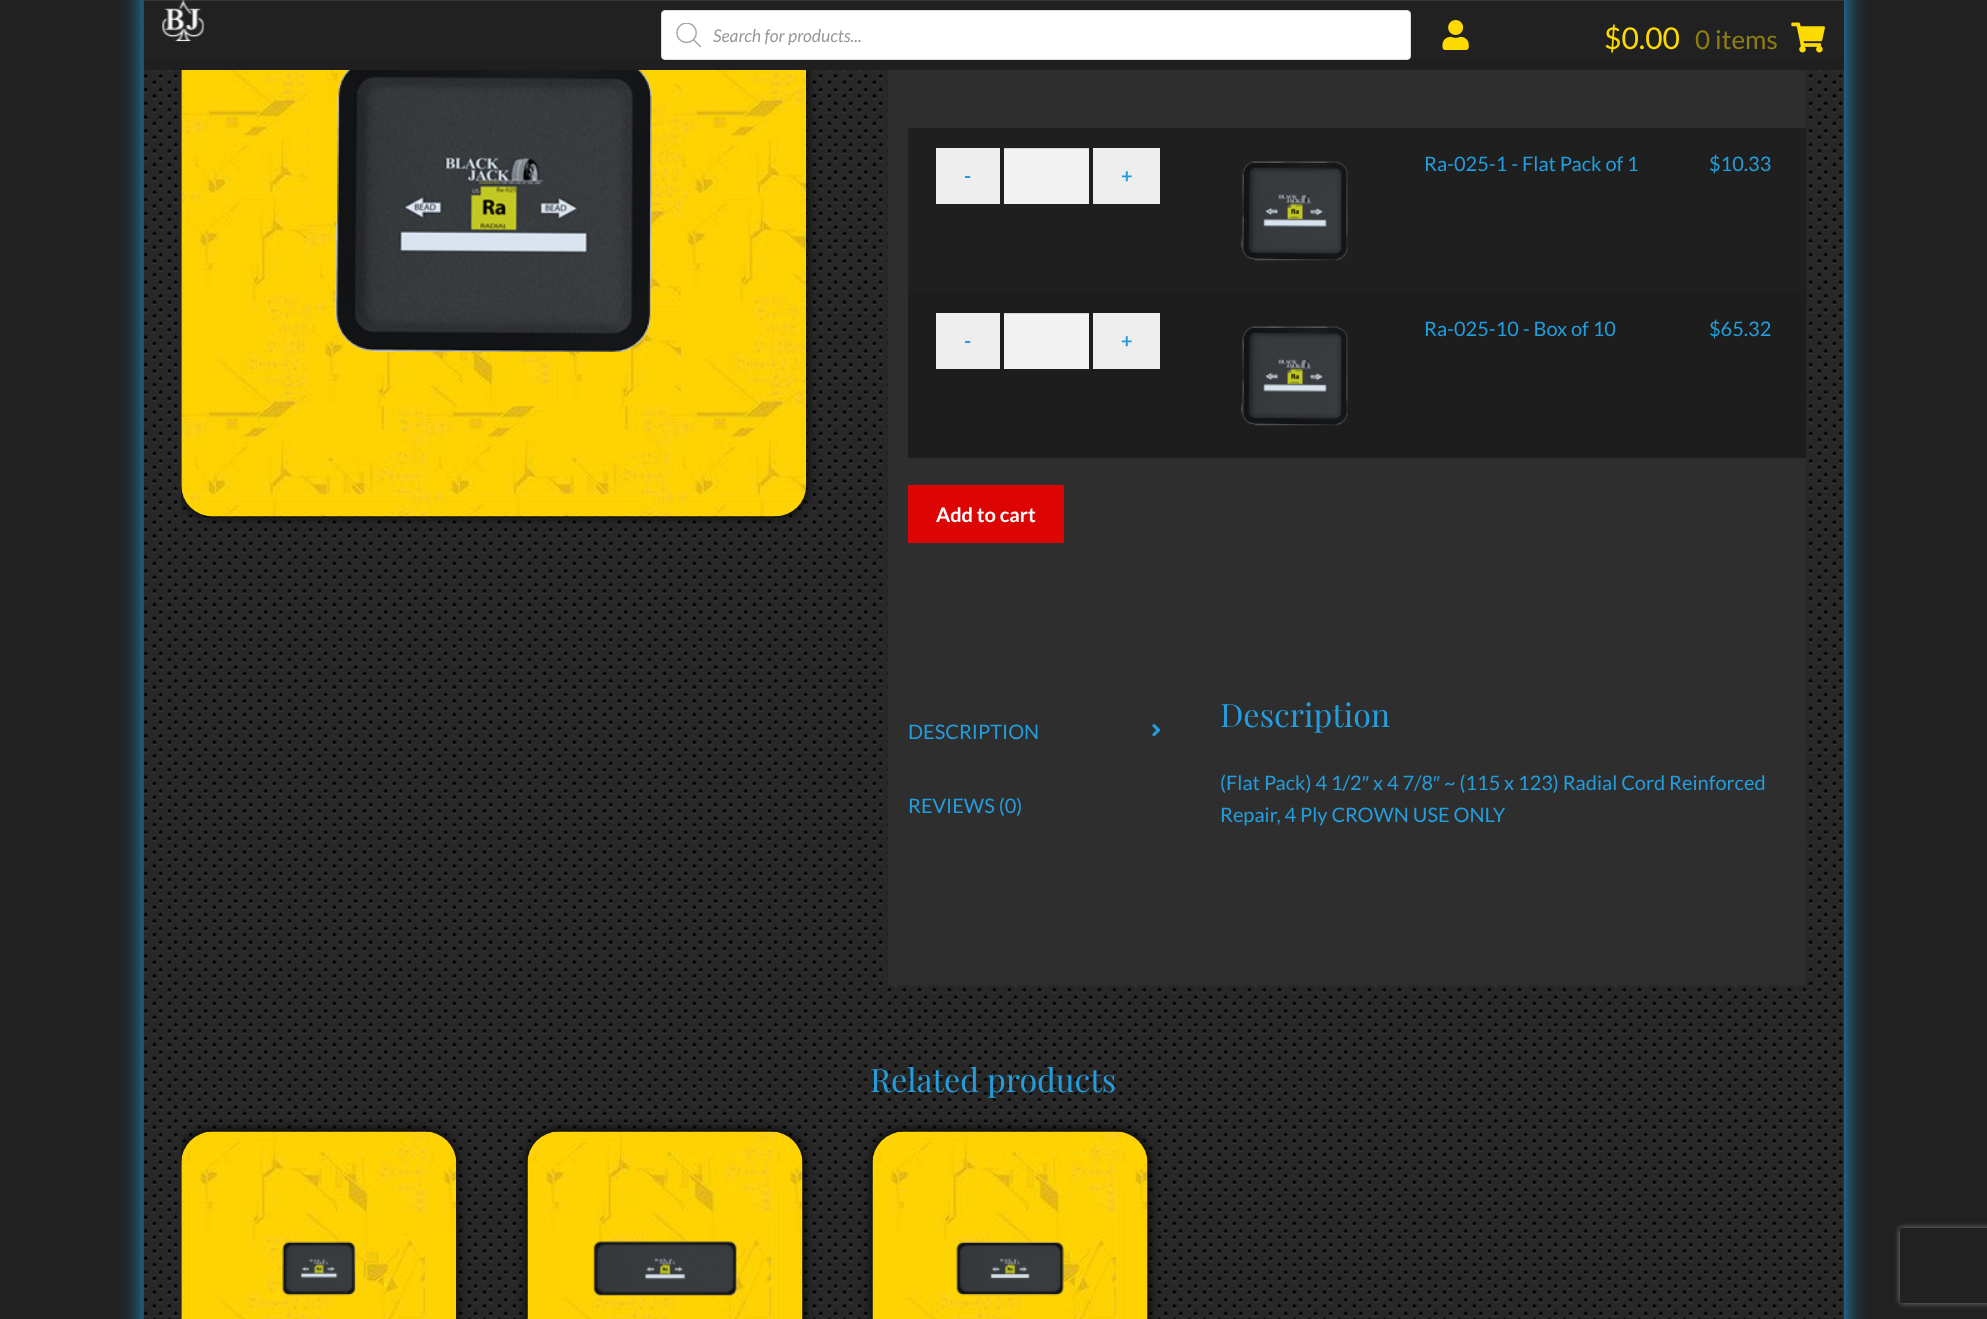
(async () => {
    const canvas = document.querySelector("canvas");
    canvas.width = 1987;
    canvas.height = 1319;
    const context = canvas.getContext("2d");
    context.miterLimit = 4;
    context.fontKerning = "normal";
    function write(s, x, y, font, color) {
        context.font = font;
        context.fillStyle = color;
        context.fillText(s, x, y);
    }
    function block(x, y, w, h, color) {
        context.fillStyle = color;
        context.fillRect(x, y, w, h);
    }
    async function photo(src, x, y, w, h) {
        const img = new Image();
        img.src = src;
        await img.decode();
        context.drawImage(img, x, y, w, h);
    }

    block(0, 0, 1987, 1319, "rgb(33, 33, 33)");
    context.fillStyle = "rgb(35, 157, 219)";
    context.filter = "blur(12.5px)";
    context.beginPath();
    context.rect(144, -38, 1700, 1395);
    context.fill();
    context.filter = "none";
    await photo("media/5.png", 143, 0, 1701, 1319);
    context.save();
    context.beginPath();
    context.rect(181, 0, 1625, 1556);
    context.clip();
    context.fillStyle = "rgb(0, 0, 0)";
    context.filter = "blur(6px)";
    context.beginPath();
    context.roundRect(181, -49, 625, 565, 31);
    context.fill();
    context.filter = "none";
    context.restore();
    block(144, 1, 1700, 59, "rgb(33, 33, 33)");
    block(144, 60, 1700, 10, "rgb(31, 31, 31)");
    block(144, 0, 1700, 1, "rgb(55, 55, 55)");
    await photo("media/1.png", 162, 0, 43, 42);
    context.fillStyle = "rgb(255, 255, 255)";
    context.beginPath();
    context.roundRect(661.5, 10.5, 749, 49, 3.5);
    context.fill();
    context.strokeStyle = "rgb(221, 221, 221)";
    context.stroke();
    await photo("media/2.png", 676, 23, 25, 25);
    write("Search for products...", 713, 42, "italic 17.5px Lato", "rgb(153, 153, 153)");
    await photo("media/3.png", 1442, 20, 27, 30);
    write("$0.00", 1604, 49, "30px Lato", "rgb(253, 218, 0)");
    write("0 items", 1695, 49, "26px Lato", "rgb(143, 126, 17)");
    await photo("media/4.png", 1791, 22, 34, 31);
    await photo("media/6.png", 181, 70, 626, 447);
    await photo("media/7.png", 306, 70, 375, 337);
    await photo("media/8.png", 334, 70, 318, 283);
    block(888, 70, 918, 915, "rgb(46, 46, 46)");
    block(908, 128, 898, 165, "rgb(31, 31, 31)");
    block(936, 148, 64, 56, "rgb(238, 238, 238)");
    write("-", 964, 183, "bold 20px Lato", "rgb(35, 157, 219)");
    block(1004, 149, 85, 55, "rgb(242, 242, 242)");
    block(1004, 148, 85, 1, "rgb(212, 212, 212)");
    block(1093, 148, 67, 56, "rgb(238, 238, 238)");
    write("+", 1121, 183, "bold 20px Lato", "rgb(35, 157, 219)");
    await photo("media/9.png", 1241, 161, 107, 100);
    write("Ra-025-1 - Flat Pack of 1", 1424, 171, "20px Lato", "rgb(35, 157, 219)");
    write("$10.33", 1709, 171, "20px Lato", "rgb(35, 157, 219)");
    block(908, 293, 898, 165, "rgb(29, 29, 29)");
    block(936, 313, 64, 56, "rgb(238, 238, 238)");
    write("-", 964, 348, "bold 20px Lato", "rgb(35, 157, 219)");
    block(1004, 314, 85, 55, "rgb(242, 242, 242)");
    block(1004, 313, 85, 1, "rgb(212, 212, 212)");
    block(1093, 313, 67, 56, "rgb(238, 238, 238)");
    write("+", 1121, 348, "bold 20px Lato", "rgb(35, 157, 219)");
    await photo("media/10.png", 1241, 326, 107, 100);
    write("Ra-025-10 - Box of 10", 1424, 336, "20px Lato", "rgb(35, 157, 219)");
    write("$65.32", 1709, 336, "20px Lato", "rgb(35, 157, 219)");
    block(908, 485, 156, 58, "rgb(221, 4, 4)");
    write("Add to cart", 936, 522, "bold 20px Lato", "rgb(255, 255, 255)");
    write("DESCRIPTION", 908, 739, "20px Lato", "rgb(35, 157, 219)");
    await photo("media/11.png", 1152, 723, 9, 14);
    write("REVIEWS (0)", 908, 813, "20px Lato", "rgb(35, 157, 219)");
    write("Description", 1220, 727, "32.25px Playfair Display", "rgb(35, 157, 219)");
    write("(Flat Pack) 4 1/2", 1220, 790, "20px Lato", "rgb(35, 157, 219)");
    write("″", 1362, 790, "20px Liberation Sans", "rgb(35, 157, 219)");
    write("x 4 7/8", 1373, 790, "20px Lato", "rgb(35, 157, 219)");
    write("″", 1433, 790, "20px Liberation Sans", "rgb(35, 157, 219)");
    write("~ (115 x 123) Radial Cord Reinforced", 1444, 790, "20px Lato", "rgb(35, 157, 219)");
    write("Repair, 4 Ply CROWN USE ONLY", 1220, 822, "20px Lato", "rgb(35, 157, 219)");
    write("Related products", 870, 1092, "32.25px Playfair Display", "rgb(35, 157, 219)");
    context.save();
    context.beginPath();
    context.rect(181, 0, 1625, 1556);
    context.clip();
    context.fillStyle = "rgb(0, 0, 0)";
    context.filter = "blur(6px)";
    context.beginPath();
    context.roundRect(181, 1131, 275, 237, 31);
    context.fill();
    context.filter = "none";
    context.restore();
    await photo("media/12.png", 181, 1131, 276, 188);
    await photo("media/13.png", 282, 1241, 74, 55);
    context.fillStyle = "rgb(0, 0, 0)";
    context.filter = "blur(6px)";
    context.beginPath();
    context.roundRect(528, 1131, 275, 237, 31);
    context.fill();
    context.filter = "none";
    await photo("media/14.png", 527, 1131, 276, 188);
    await photo("media/15.png", 593, 1241, 144, 55);
    context.filter = "blur(6px)";
    context.beginPath();
    context.roundRect(873, 1131, 275, 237, 31);
    context.fill();
    context.filter = "none";
    await photo("media/16.png", 872, 1131, 276, 188);
    await photo("media/17.png", 956, 1241, 108, 55);
    context.save();
    context.beginPath();
    context.moveTo(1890, 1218);
    context.lineTo(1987, 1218);
    context.lineTo(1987, 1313);
    context.lineTo(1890, 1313);
    context.closePath();
    context.moveTo(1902.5, 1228);
    context.lineTo(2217.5, 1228);
    context.bezierCurveTo(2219, 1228, 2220, 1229, 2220, 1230.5);
    context.lineTo(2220, 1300.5);
    context.bezierCurveTo(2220, 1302, 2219, 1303, 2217.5, 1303);
    context.lineTo(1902.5, 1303);
    context.bezierCurveTo(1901, 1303, 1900, 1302, 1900, 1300.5);
    context.lineTo(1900, 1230.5);
    context.bezierCurveTo(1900, 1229, 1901, 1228, 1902.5, 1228);
    context.closePath();
    context.clip("evenodd");
    context.fillStyle = "rgb(128, 128, 128)";
    context.filter = "blur(3px)";
    context.beginPath();
    context.roundRect(1900, 1228, 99, 75, 2.5);
    context.fill();
    context.filter = "none";
    context.restore();
})();
